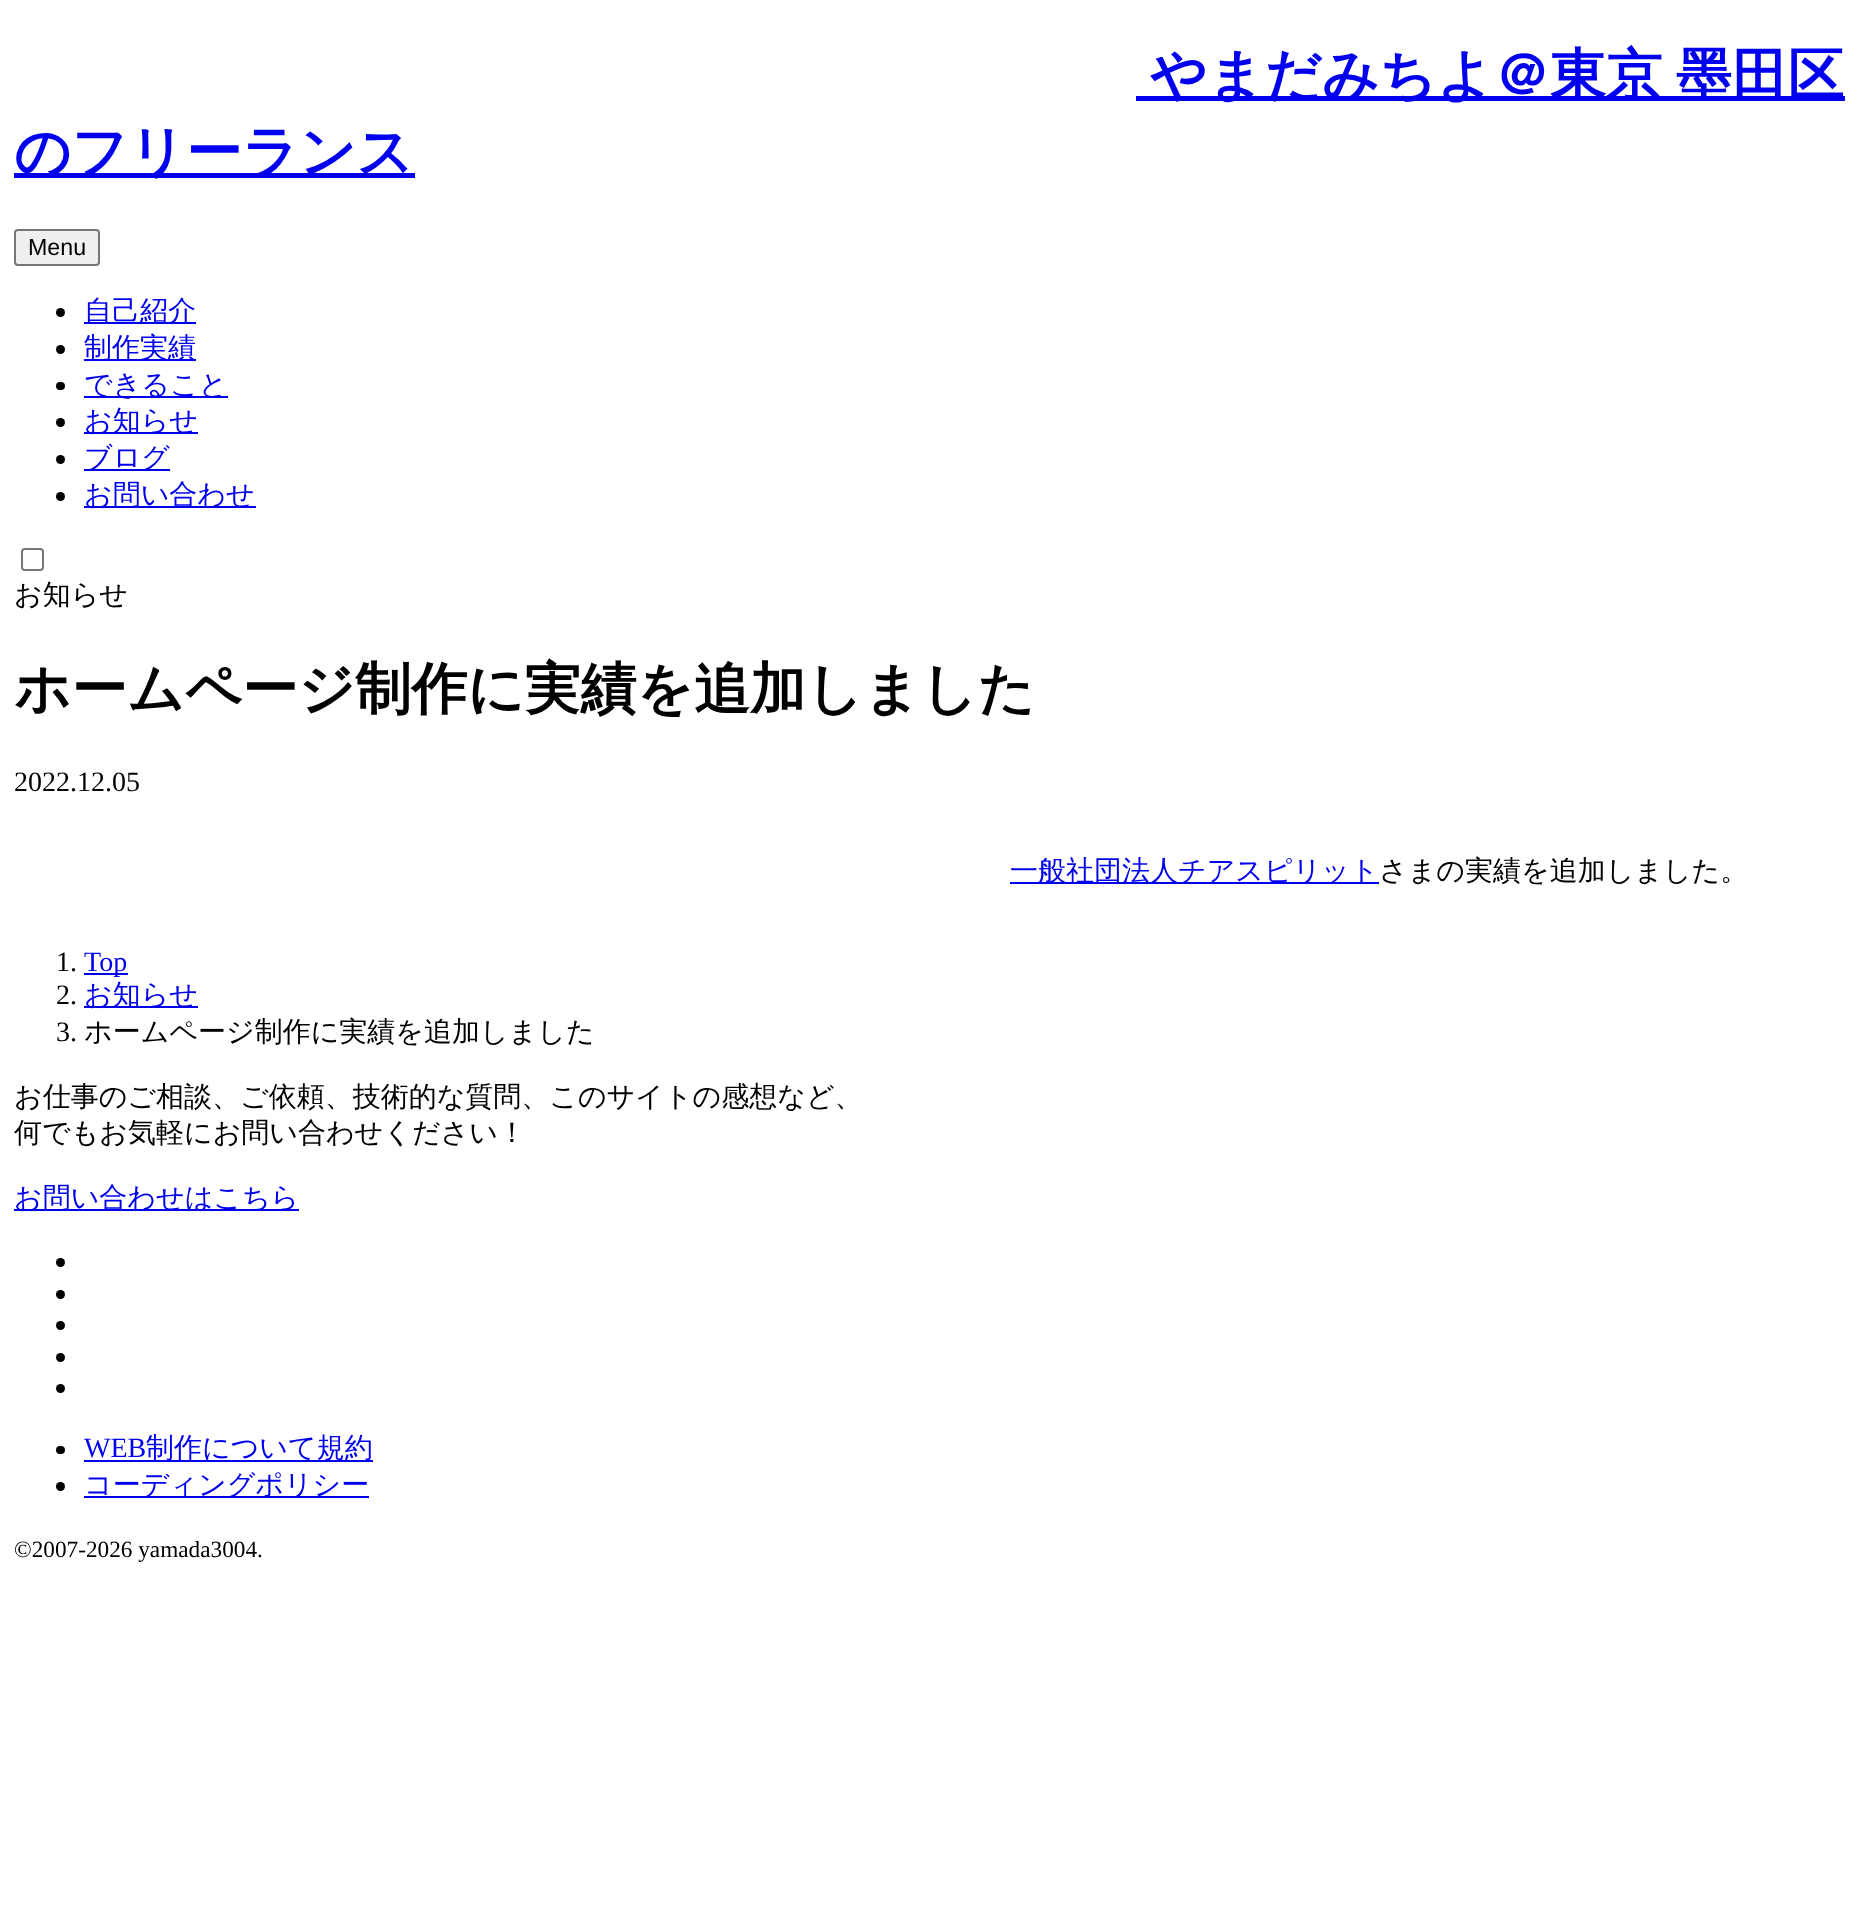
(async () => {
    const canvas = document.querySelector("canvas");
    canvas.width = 1871;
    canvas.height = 1927;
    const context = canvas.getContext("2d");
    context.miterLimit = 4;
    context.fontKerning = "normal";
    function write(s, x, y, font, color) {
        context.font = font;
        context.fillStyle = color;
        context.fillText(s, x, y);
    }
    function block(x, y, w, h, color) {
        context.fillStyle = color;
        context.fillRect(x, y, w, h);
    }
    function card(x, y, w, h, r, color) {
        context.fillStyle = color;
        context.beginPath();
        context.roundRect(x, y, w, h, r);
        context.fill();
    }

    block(0, 0, 1871, 1927, "rgb(255, 255, 255)");
    block(1136, 96, 709, 5, "rgb(0, 0, 238)");
    context.wordSpacing = "-3px";
    write("やまだみちよ＠東京 墨田区", 1150, 94, "bold 56px WenQuanYi Zen Hei", "rgb(0, 0, 238)");
    block(14, 173, 401, 5, "rgb(0, 0, 238)");
    context.wordSpacing = "0px";
    write("のフリーランス", 14, 171, "bold 56px WenQuanYi Zen Hei", "rgb(0, 0, 238)");
    context.fillStyle = "rgb(239, 239, 239)";
    context.beginPath();
    context.roundRect(15, 230, 84, 35, 3);
    context.fill();
    context.strokeStyle = "rgb(118, 118, 118)";
    context.lineWidth = 2;
    context.stroke();
    write("Menu", 28, 255, "23.25px Liberation Sans", "rgb(0, 0, 0)");
    context.beginPath();
    context.arc(60.5, 312.5, 4.5, 0, Math.PI * 2);
    context.fill();
    block(84, 322, 112, 2, "rgb(0, 0, 238)");
    write("自己紹介", 84, 320, "500 28px WenQuanYi Zen Hei", "rgb(0, 0, 238)");
    context.fillStyle = "rgb(0, 0, 0)";
    context.beginPath();
    context.arc(60.5, 349.5, 4.5, 0, Math.PI * 2);
    context.fill();
    block(84, 359, 112, 2, "rgb(0, 0, 238)");
    write("制作実績", 84, 357, "500 28px WenQuanYi Zen Hei", "rgb(0, 0, 238)");
    card(56, 382, 9, 8, 4, "rgb(0, 0, 0)");
    block(84, 396, 144, 2, "rgb(0, 0, 238)");
    write("できること", 84, 394, "500 28px WenQuanYi Zen Hei", "rgb(0, 0, 238)");
    context.fillStyle = "rgb(0, 0, 0)";
    context.beginPath();
    context.arc(60.5, 422.5, 4.5, 0, Math.PI * 2);
    context.fill();
    block(84, 432, 114, 2, "rgb(0, 0, 238)");
    write("お知らせ", 84, 430, "500 28px WenQuanYi Zen Hei", "rgb(0, 0, 238)");
    context.fillStyle = "rgb(0, 0, 0)";
    context.beginPath();
    context.arc(60.5, 459.5, 4.5, 0, Math.PI * 2);
    context.fill();
    block(84, 469, 86, 2, "rgb(0, 0, 238)");
    write("ブログ", 84, 467, "500 28px WenQuanYi Zen Hei", "rgb(0, 0, 238)");
    context.fillStyle = "rgb(0, 0, 0)";
    context.beginPath();
    context.arc(60.5, 496.5, 4.5, 0, Math.PI * 2);
    context.fill();
    block(84, 506, 172, 2, "rgb(0, 0, 238)");
    write("お問い合わせ", 84, 504, "500 28px WenQuanYi Zen Hei", "rgb(0, 0, 238)");
    context.beginPath();
    context.roundRect(22, 549, 21, 21, 3);
    context.stroke();
    write("お知らせ", 14, 604, "500 28px WenQuanYi Zen Hei", "rgb(0, 0, 0)");
    write("ホームページ制作に実績を追加しました", 14, 708, "bold 56px WenQuanYi Zen Hei", "rgb(0, 0, 0)");
    write("2022.12.05", 14, 791, "28px Liberation Serif", "rgb(0, 0, 0)");
    block(1010, 882, 369, 2, "rgb(0, 0, 238)");
    write("一般社団法人チアスピリット", 1010, 880, "500 28px WenQuanYi Zen Hei", "rgb(0, 0, 238)");
    write("さまの実績を追加しました。", 1379, 880, "500 28px WenQuanYi Zen Hei", "rgb(0, 0, 0)");
    write("1.", 56, 971, "28px Liberation Serif", "rgb(0, 0, 0)");
    block(84, 973, 44, 2, "rgb(0, 0, 238)");
    write("Top", 84, 971, "28px Liberation Serif", "rgb(0, 0, 238)");
    write("2.", 56, 1004, "28px Liberation Serif", "rgb(0, 0, 0)");
    block(84, 1006, 114, 2, "rgb(0, 0, 238)");
    write("お知らせ", 84, 1004, "500 28px WenQuanYi Zen Hei", "rgb(0, 0, 238)");
    write("3.", 56, 1041, "28px Liberation Serif", "rgb(0, 0, 0)");
    write("ホームページ制作に実績を追加しました", 84, 1041, "500 28px WenQuanYi Zen Hei", "rgb(0, 0, 0)");
    write("お仕事のご相談、ご依頼、技術的な質問、このサイトの感想など、", 14, 1106, "500 28px WenQuanYi Zen Hei", "rgb(0, 0, 0)");
    write("何でもお気軽にお問い合わせください！", 14, 1142, "500 28px WenQuanYi Zen Hei", "rgb(0, 0, 0)");
    block(14, 1209, 285, 2, "rgb(0, 0, 238)");
    write("お問い合わせはこちら", 14, 1207, "500 28px WenQuanYi Zen Hei", "rgb(0, 0, 238)");
    context.fillStyle = "rgb(0, 0, 0)";
    context.beginPath();
    context.arc(60.5, 1262.5, 4.5, 0, Math.PI * 2);
    context.fill();
    context.beginPath();
    context.arc(60.5, 1294.5, 4.5, 0, Math.PI * 2);
    context.fill();
    context.beginPath();
    context.arc(60.5, 1325.5, 4.5, 0, Math.PI * 2);
    context.fill();
    context.beginPath();
    context.arc(60.5, 1357.5, 4.5, 0, Math.PI * 2);
    context.fill();
    context.beginPath();
    context.arc(60.5, 1388.5, 4.5, 0, Math.PI * 2);
    context.fill();
    card(56, 1446, 9, 8, 4, "rgb(0, 0, 0)");
    write("WEB", 84, 1457, "28px Liberation Serif", "rgb(0, 0, 238)");
    block(84, 1460, 289, 2, "rgb(0, 0, 238)");
    write("制作について規約", 146, 1457, "500 28px WenQuanYi Zen Hei", "rgb(0, 0, 238)");
    context.fillStyle = "rgb(0, 0, 0)";
    context.beginPath();
    context.arc(60.5, 1486.5, 4.5, 0, Math.PI * 2);
    context.fill();
    block(84, 1496, 285, 2, "rgb(0, 0, 238)");
    write("コーディングポリシー", 84, 1494, "500 28px WenQuanYi Zen Hei", "rgb(0, 0, 238)");
    write("©2007-2026 yamada3004.", 14, 1557, "23.25px Liberation Serif", "rgb(0, 0, 0)");
})();
